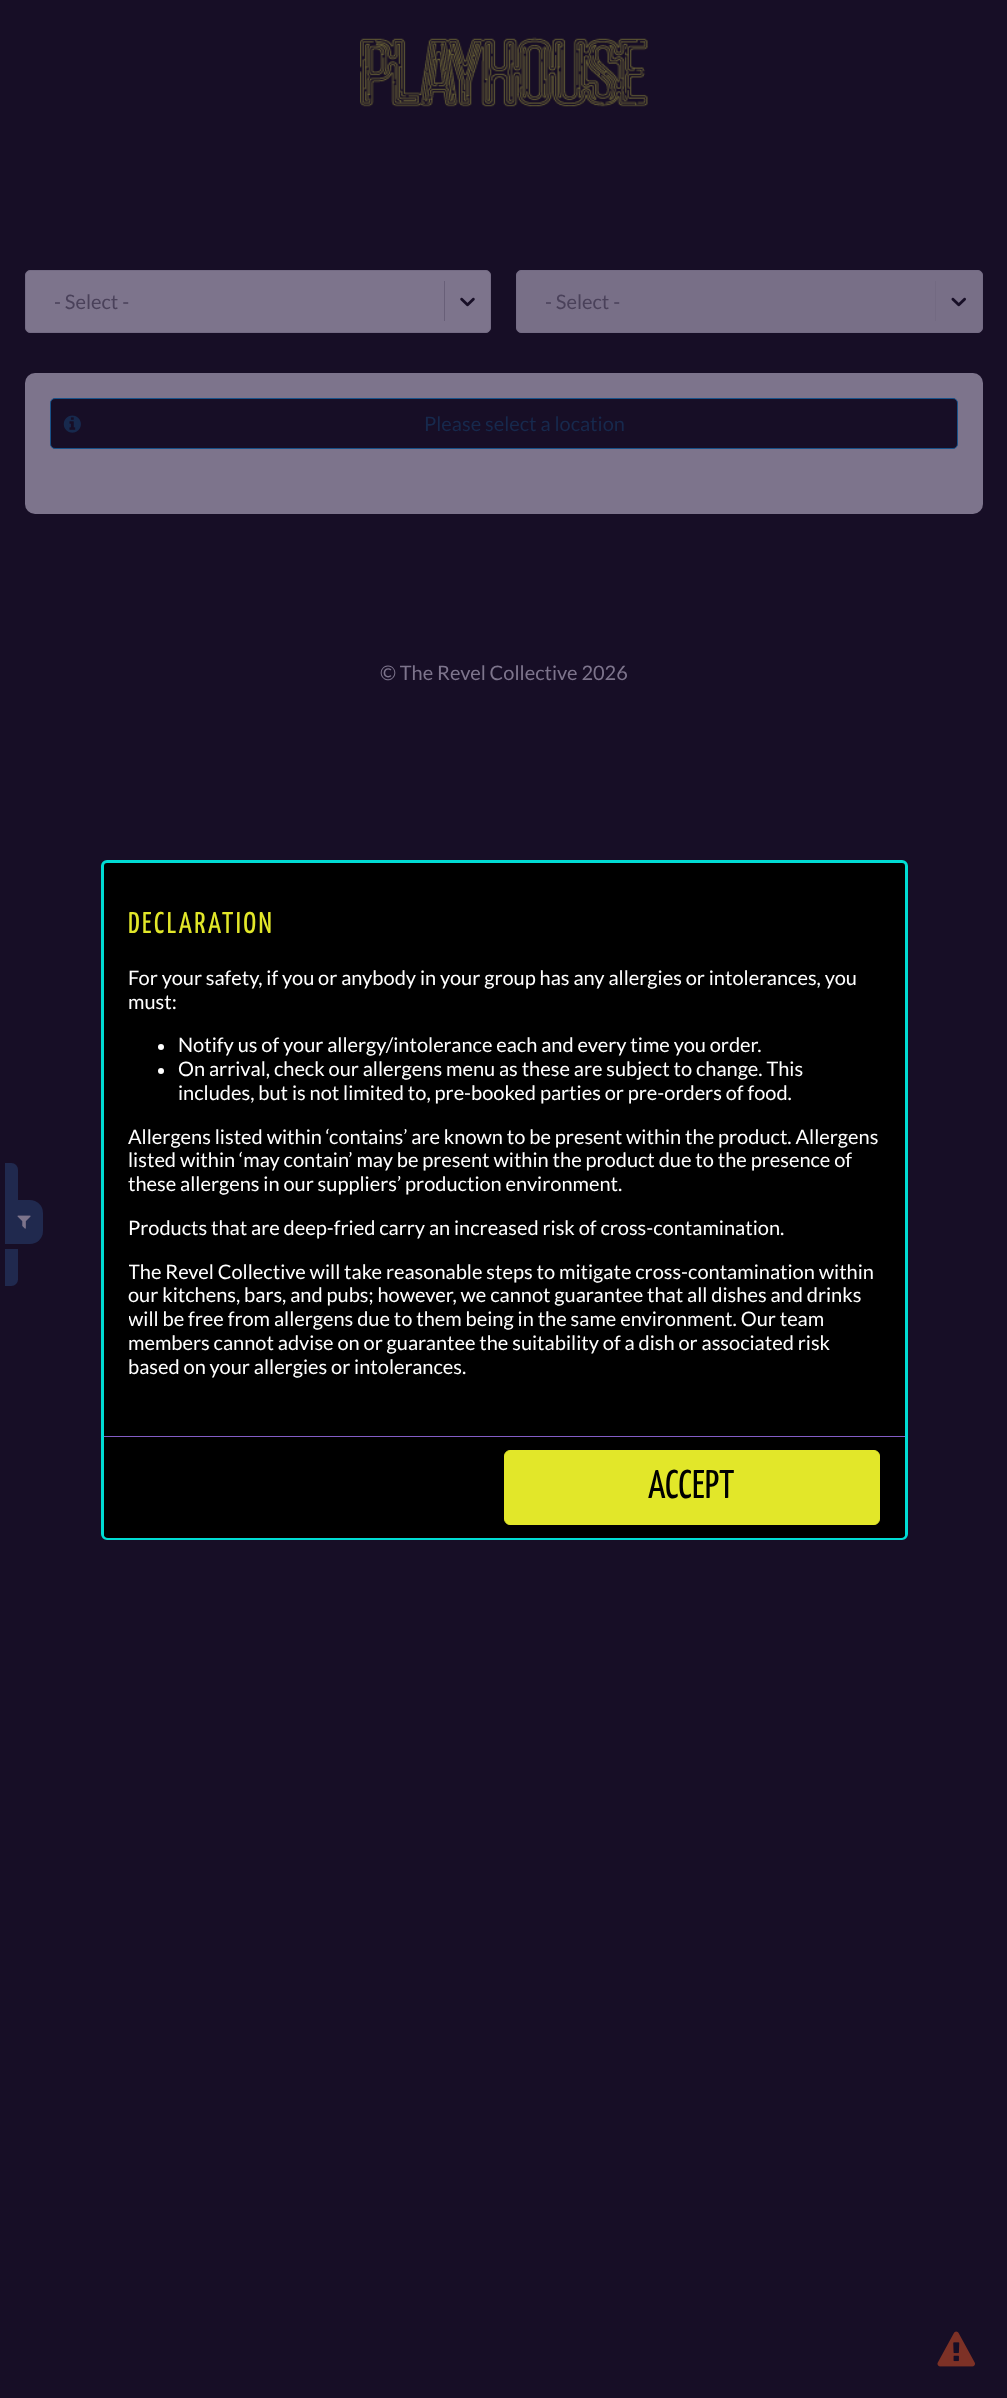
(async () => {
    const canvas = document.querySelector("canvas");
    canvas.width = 1007;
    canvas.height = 2398;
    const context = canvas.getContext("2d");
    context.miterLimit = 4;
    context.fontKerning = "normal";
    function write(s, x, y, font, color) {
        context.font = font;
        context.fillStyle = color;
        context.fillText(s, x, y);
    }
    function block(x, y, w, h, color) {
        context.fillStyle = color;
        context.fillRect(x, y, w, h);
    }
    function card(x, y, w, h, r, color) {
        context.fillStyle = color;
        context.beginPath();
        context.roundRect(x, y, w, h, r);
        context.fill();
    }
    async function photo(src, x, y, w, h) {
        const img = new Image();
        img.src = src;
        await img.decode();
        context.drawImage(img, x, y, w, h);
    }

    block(0, 0, 1007, 2398, "rgb(23, 14, 38)");
    await photo("media/1.png", 360, 37, 288, 70);
    context.fillStyle = "rgb(125, 116, 140)";
    context.beginPath();
    context.roundRect(25.5, 270.5, 465, 62, 4.5);
    context.fill();
    context.strokeStyle = "rgb(116, 107, 132)";
    context.stroke();
    write("- Select -", 54, 309, "20px Lato", "rgb(74, 65, 90)");
    block(444, 281, 1, 40, "rgb(104, 95, 120)");
    await photo("media/2.png", 460, 297, 15, 10);
    context.fillStyle = "rgb(120, 111, 135)";
    context.beginPath();
    context.roundRect(516.5, 270.5, 466, 62, 4.5);
    context.fill();
    context.stroke();
    write("- Select -", 545, 309, "20px Lato", "rgb(74, 65, 90)");
    block(935, 281, 1, 40, "rgb(115, 106, 130)");
    await photo("media/3.png", 951, 297, 15, 10);
    card(25, 373, 958, 141, 10, "rgb(125, 116, 140)");
    context.fillStyle = "rgb(23, 14, 38)";
    context.beginPath();
    context.roundRect(50.5, 398.5, 907, 50, 4.5);
    context.fill();
    context.strokeStyle = "rgb(24, 81, 136)";
    context.stroke();
    await photo("media/4.png", 63, 415, 18, 18);
    write("Please select a location", 424, 431, "20px Lato", "rgb(23, 41, 77)");
    context.fillStyle = "rgb(32, 41, 78)";
    context.beginPath();
    context.roundRect(5, 1200, 38, 44, [0, 13, 13, 0]);
    context.fill();
    context.beginPath();
    context.roundRect(5, 1163, 13, 37, [0, 6.5, 0, 0]);
    context.fill();
    await photo("media/5.png", 17, 1215, 14, 14);
    context.beginPath();
    context.roundRect(5, 1249, 13, 37, [0, 0, 6.5, 0]);
    context.fill();
    await photo("media/6.png", 937, 2331, 38, 36);
    write("© The Revel Collective 2026", 380, 680, "20px Lato", "rgb(125, 116, 140)");
    context.fillStyle = "rgb(0, 0, 0)";
    context.beginPath();
    context.roundRect(102.5, 861.5, 804, 677, 4.5);
    context.fill();
    context.strokeStyle = "rgb(0, 220, 212)";
    context.lineWidth = 3;
    context.stroke();
    context.letterSpacing = "2.5px";
    write("DECLARATION", 128, 933, "30px Yanone Kaffeesatz", "rgb(226, 231, 41)");
    context.letterSpacing = "0px";
    write("For your safety, if you or anybody in your group has any allergies or intolerances, you", 128, 985, "20px Lato", "rgb(255, 255, 255)");
    write("must:", 128, 1009, "20px Lato", "rgb(255, 255, 255)");
    context.beginPath();
    context.arc(161, 1047, 3, 0, Math.PI * 2);
    context.fill();
    write("Notify us of your allergy/intolerance each and every time you order.", 178, 1052, "20px Lato", "rgb(255, 255, 255)");
    context.beginPath();
    context.arc(161, 1071, 3, 0, Math.PI * 2);
    context.fill();
    write("On arrival, check our allergens menu as these are subject to change. This", 178, 1076, "20px Lato", "rgb(255, 255, 255)");
    write("includes, but is not limited to, pre-booked parties or pre-orders of food.", 178, 1100, "20px Lato", "rgb(255, 255, 255)");
    write("Allergens listed within ‘contains’ are known to be present within the product. Allergens", 128, 1144, "20px Lato", "rgb(255, 255, 255)");
    write("listed within ‘may contain’ may be present within the product due to the presence of", 128, 1167, "20px Lato", "rgb(255, 255, 255)");
    write("these allergens in our suppliers’ production environment.", 128, 1191, "20px Lato", "rgb(255, 255, 255)");
    write("Products that are deep-fried carry an increased risk of cross-contamination.", 128, 1235, "20px Lato", "rgb(255, 255, 255)");
    context.save();
    context.beginPath();
    context.rect(129, 888, 751, 625);
    context.clip();
    write("The Revel Collective will take reasonable steps to mitigate cross-contamination within", 128, 1279, "20px Lato", "rgb(255, 255, 255)");
    context.restore();
    write("our kitchens, bars, and pubs; however, we cannot guarantee that all dishes and drinks", 128, 1302, "20px Lato", "rgb(255, 255, 255)");
    context.save();
    context.beginPath();
    context.rect(129, 888, 751, 625);
    context.clip();
    write("will be free from allergens due to them being in the same environment. Our team", 128, 1326, "20px Lato", "rgb(255, 255, 255)");
    context.restore();
    write("members cannot advise on or guarantee the suitability of a dish or associated risk", 128, 1350, "20px Lato", "rgb(255, 255, 255)");
    write("based on your allergies or intolerances.", 128, 1374, "20px Lato", "rgb(255, 255, 255)");
    context.fillStyle = "rgb(0, 0, 0)";
    context.beginPath();
    context.roundRect(104, 1436, 801, 102, [0, 0, 4, 4]);
    context.fill();
    block(104, 1436, 801, 1, "rgb(131, 93, 198)");
    context.fillStyle = "rgb(226, 231, 41)";
    context.beginPath();
    context.roundRect(504.5, 1450.5, 375, 74, 5.5);
    context.fill();
    context.strokeStyle = "rgb(226, 231, 41)";
    context.lineWidth = 1;
    context.stroke();
    write("ACCEPT", 648, 1498, "40px Yanone Kaffeesatz", "rgb(0, 0, 0)");
})();
